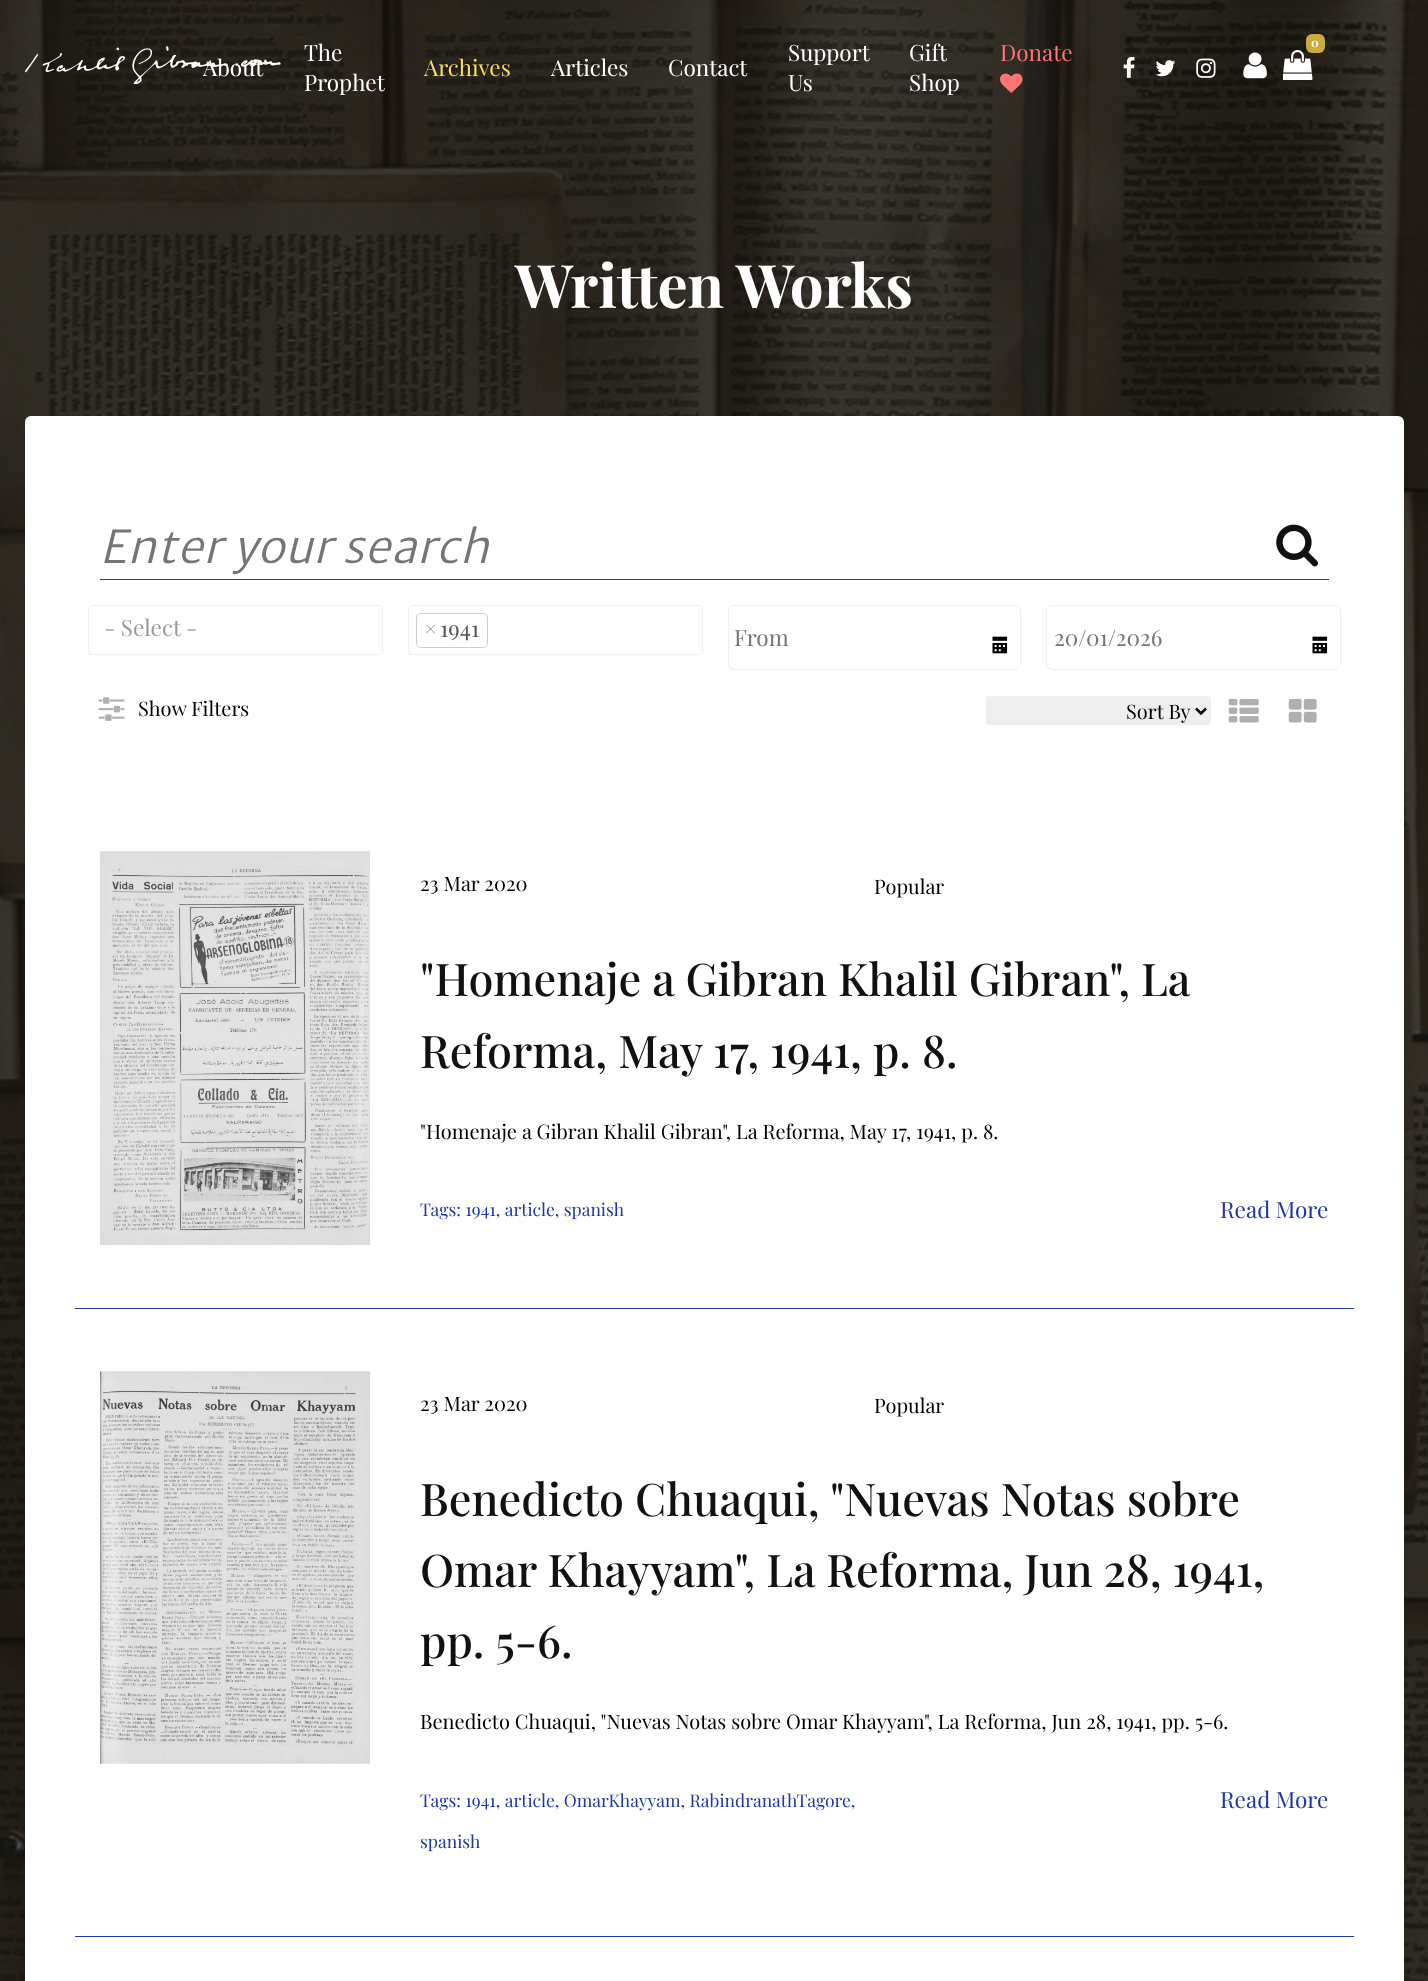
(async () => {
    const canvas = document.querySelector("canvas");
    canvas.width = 1428;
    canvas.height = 1981;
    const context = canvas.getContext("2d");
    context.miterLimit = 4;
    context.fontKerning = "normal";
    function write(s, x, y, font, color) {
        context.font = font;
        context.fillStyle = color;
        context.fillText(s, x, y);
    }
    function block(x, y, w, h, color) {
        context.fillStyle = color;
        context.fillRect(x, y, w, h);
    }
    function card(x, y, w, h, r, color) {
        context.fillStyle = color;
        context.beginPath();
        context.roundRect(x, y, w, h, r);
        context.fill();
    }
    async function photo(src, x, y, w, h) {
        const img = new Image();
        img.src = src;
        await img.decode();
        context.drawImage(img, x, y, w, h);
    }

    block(0, 0, 1428, 1981, "rgb(255, 255, 255)");
    await photo("media/8.png", 0, 0, 1428, 1981);
    await photo("media/1.png", 25, 46, 256, 38);
    write("The", 304, 61, "22.5px Playfair Display", "rgb(255, 255, 255)");
    write("Prophet", 304, 91, "22.5px Playfair Display", "rgb(255, 255, 255)");
    write("Support", 788, 61, "22.5px Playfair Display", "rgb(255, 255, 255)");
    write("Us", 788, 91, "22.5px Playfair Display", "rgb(255, 255, 255)");
    write("Gift", 909, 61, "22.5px Playfair Display", "rgb(255, 255, 255)");
    write("Shop", 909, 91, "22.5px Playfair Display", "rgb(255, 255, 255)");
    write("Donate", 1000, 61, "22.5px Playfair Display", "rgb(255, 117, 117)");
    await photo("media/2.png", 1000, 73, 23, 20);
    write("About", 203, 76, "22.5px Playfair Display", "rgb(255, 255, 255)");
    write("Archives", 424, 76, "22.5px Playfair Display", "rgb(252, 217, 108)");
    write("Articles", 551, 76, "22.5px Playfair Display", "rgb(255, 255, 255)");
    write("Contact", 668, 76, "22.5px Playfair Display", "rgb(255, 255, 255)");
    await photo("media/3.png", 1123, 57, 12, 21);
    await photo("media/4.png", 1155, 60, 21, 17);
    await photo("media/5.png", 1196, 58, 20, 20);
    await photo("media/6.png", 1283, 50, 30, 30);
    card(1306, 34, 19, 19, 6, "rgb(205, 170, 62)");
    write("0", 1311, 47, "bold 12px Playfair Display", "rgb(255, 255, 255)");
    await photo("media/7.png", 1243, 52, 24, 27);
    write("Written Works", 515, 308, "bold 60px Playfair Display", "rgb(255, 255, 255)");
    card(25, 416, 1379, 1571, 6, "rgb(255, 255, 255)");
    block(100, 579, 1229, 1, "rgb(32, 55, 157)");
    context.letterSpacing = "1.25px";
    write("Enter your search", 100, 563, "italic 300 45px Merriweather Sans", "rgb(117, 117, 117)");
    await photo("media/9.png", 1276, 524, 42, 43);
    context.beginPath();
    context.roundRect(88.5, 605.5, 294, 49, 4.5);
    context.strokeStyle = "rgb(238, 238, 238)";
    context.stroke();
    context.letterSpacing = "0px";
    write("- Select -", 104, 636, "22.5px Playfair Display", "rgb(153, 153, 153)");
    context.beginPath();
    context.roundRect(408.5, 605.5, 294, 49, 4.5);
    context.stroke();
    context.beginPath();
    context.roundRect(416.5, 613.5, 71, 34, 4.5);
    context.strokeStyle = "rgb(204, 204, 204)";
    context.stroke();
    write("×", 425, 637, "bold 22.5px Playfair Display", "rgb(153, 153, 153)");
    write("1941", 440, 637, "22.5px Playfair Display", "rgb(85, 85, 85)");
    context.beginPath();
    context.roundRect(728.5, 605.5, 292, 64, 5.5);
    context.strokeStyle = "rgb(238, 238, 238)";
    context.stroke();
    write("From", 734, 646, "22.5px Playfair Display", "rgb(117, 117, 117)");
    await photo("media/10.png", 992, 636, 16, 18);
    context.beginPath();
    context.roundRect(1046.5, 605.5, 294, 64, 5.5);
    context.stroke();
    write("20/01/2026", 1054, 646, "22.5px Playfair Display", "rgb(117, 117, 117)");
    await photo("media/10.png", 1312, 636, 16, 18);
    await photo("media/11.png", 98, 697, 27, 24);
    write("Show Filters", 138, 716, "20px Playfair Display", "rgb(0, 0, 0)");
    card(986, 696, 225, 29, 4, "rgb(239, 239, 239)");
    context.beginPath();
    context.moveTo(1196, 708.5);
    context.lineTo(1201, 713.5);
    context.lineTo(1206, 708.5);
    context.strokeStyle = "rgb(0, 0, 0)";
    context.lineWidth = 2.5;
    context.stroke();
    write("Sort By", 1126, 719, "20px Playfair Display", "rgb(0, 0, 0)");
    await photo("media/12.png", 1228, 698, 31, 25);
    await photo("media/13.png", 1288, 698, 29, 25);
    block(75, 1308, 1279, 1, "rgb(32, 55, 157)");
    await photo("media/14.png", 100, 851, 270, 394);
    write("23 Mar 2020", 420, 891, "20px Playfair Display", "rgb(0, 0, 0)");
    write("Popular", 874, 894, "20px Playfair Display", "rgb(0, 0, 0)");
    write("\"Homenaje a Gibran Khalil Gibran\", La", 420, 996, "500 45px Playfair Display", "rgb(17, 17, 17)");
    write("Reforma, May 17, 1941, p. 8.", 420, 1068, "500 45px Playfair Display", "rgb(17, 17, 17)");
    write("\"Homenaje a Gibran Khalil Gibran\", La Reforma, May 17, 1941, p. 8.", 420, 1139, "20px Playfair Display", "rgb(0, 0, 0)");
    write("Tags: 1941, article, spanish", 420, 1216, "17.5px Playfair Display", "rgb(32, 55, 157)");
    write("Read More", 1220, 1218, "22.5px Playfair Display", "rgb(32, 55, 157)");
    block(75, 1936, 1279, 1, "rgb(32, 55, 157)");
    await photo("media/15.png", 100, 1371, 270, 393);
    write("23 Mar 2020", 420, 1411, "20px Playfair Display", "rgb(0, 0, 0)");
    write("Popular", 874, 1413, "20px Playfair Display", "rgb(0, 0, 0)");
    write("Benedicto Chuaqui, \"Nuevas Notas sobre", 420, 1516, "500 45px Playfair Display", "rgb(17, 17, 17)");
    write("Omar Khayyam\", La Reforma, Jun 28, 1941,", 420, 1587, "500 45px Playfair Display", "rgb(17, 17, 17)");
    write("pp. 5-6.", 420, 1658, "500 45px Playfair Display", "rgb(17, 17, 17)");
    write("Benedicto Chuaqui, \"Nuevas Notas sobre Omar Khayyam\", La Reforma, Jun 28, 1941, pp. 5-6.", 420, 1729, "20px Playfair Display", "rgb(0, 0, 0)");
    write("Tags: 1941, article, OmarKhayyam, RabindranathTagore,", 420, 1807, "17.5px Playfair Display", "rgb(32, 55, 157)");
    write("spanish", 420, 1848, "17.5px Playfair Display", "rgb(32, 55, 157)");
    write("Read More", 1220, 1808, "22.5px Playfair Display", "rgb(32, 55, 157)");
})();
